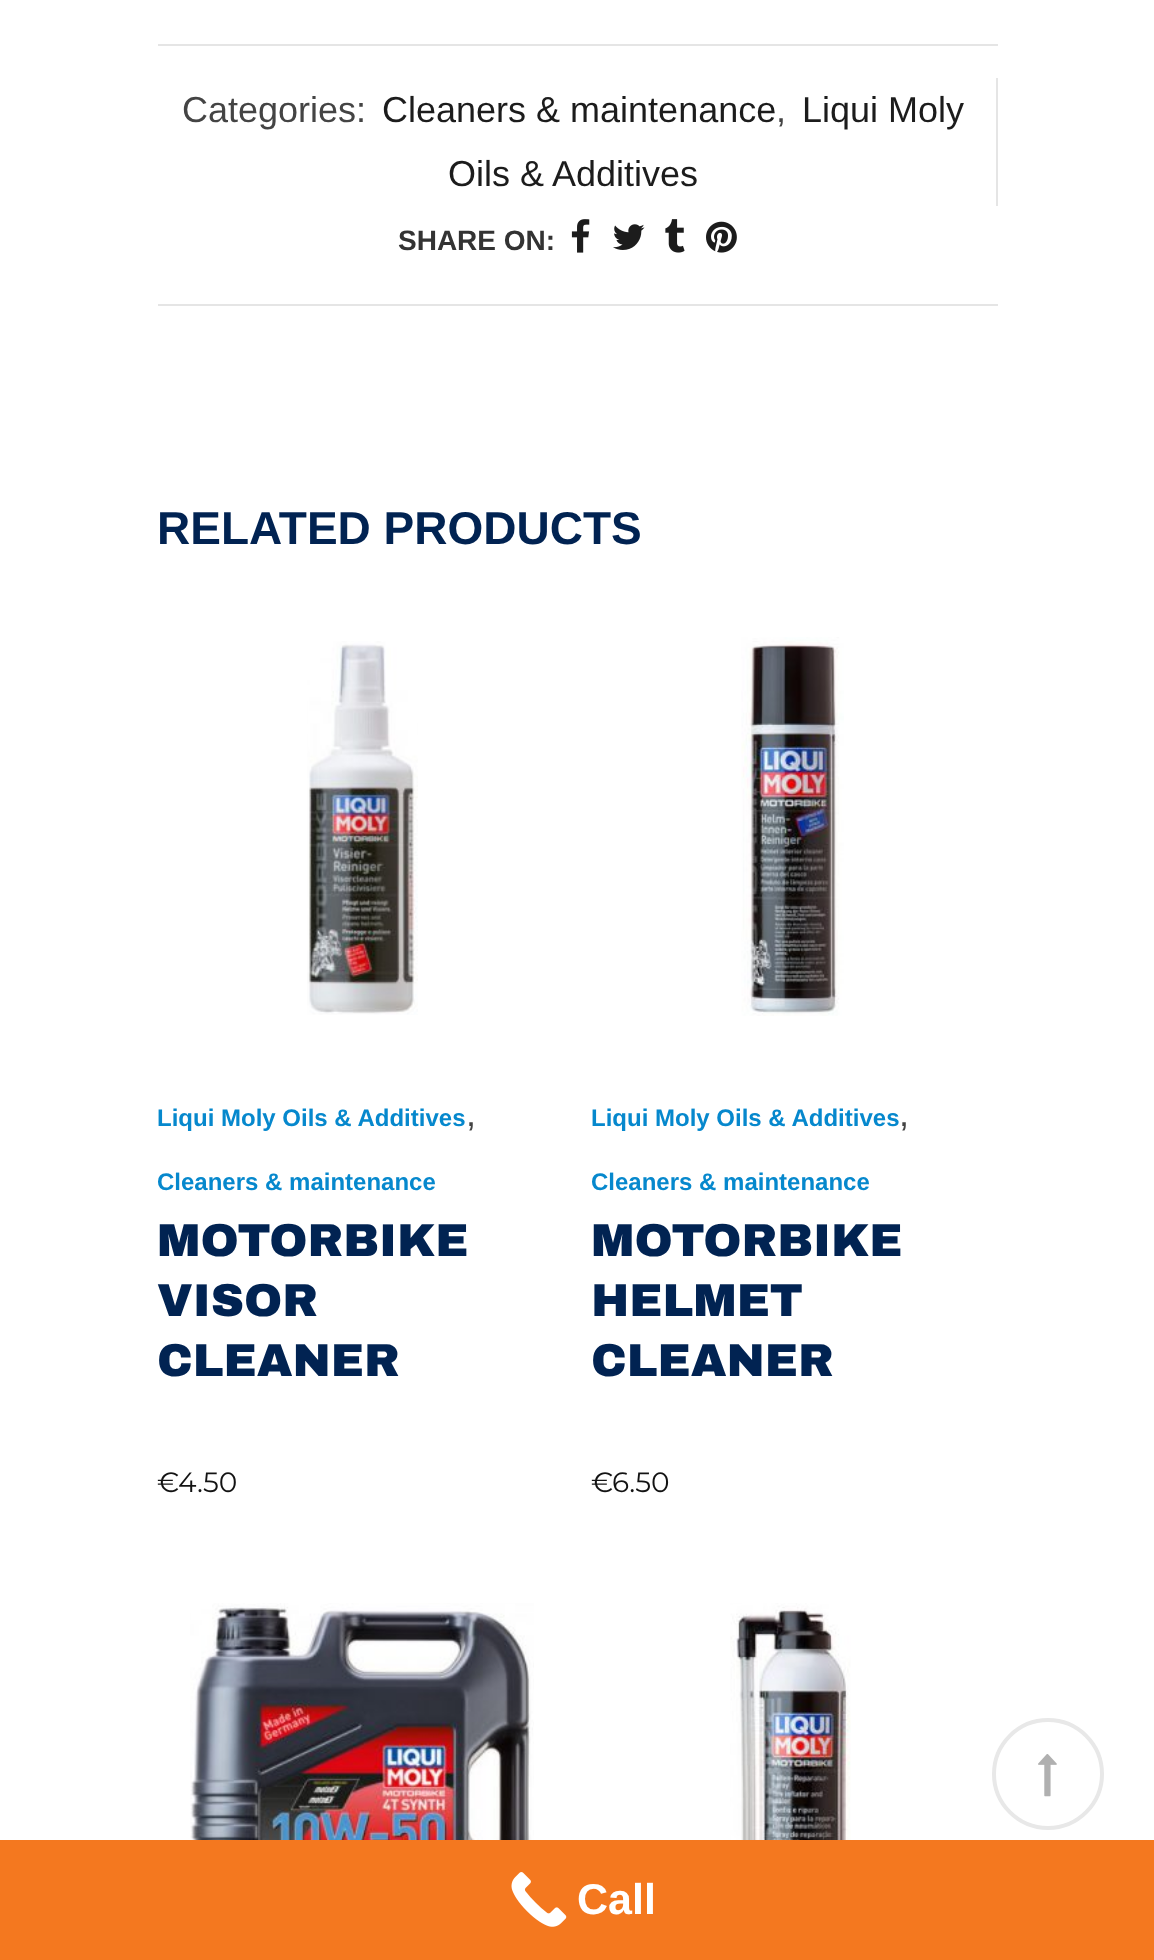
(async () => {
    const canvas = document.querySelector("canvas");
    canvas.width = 1154;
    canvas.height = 1960;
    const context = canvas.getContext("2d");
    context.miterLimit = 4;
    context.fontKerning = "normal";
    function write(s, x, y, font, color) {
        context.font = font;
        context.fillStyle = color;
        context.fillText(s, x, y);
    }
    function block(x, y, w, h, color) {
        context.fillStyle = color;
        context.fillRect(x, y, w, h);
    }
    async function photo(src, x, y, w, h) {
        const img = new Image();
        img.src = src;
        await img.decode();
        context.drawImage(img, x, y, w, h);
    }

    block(0, 0, 1154, 1960, "rgb(255, 255, 255)");
    block(158, 44, 840, 2, "rgb(229, 229, 229)");
    block(158, 304, 840, 2, "rgb(229, 229, 229)");
    block(996, 78, 2, 128, "rgb(229, 229, 229)");
    write("Categories:", 182, 122, "36px Liberation Sans", "rgb(68, 68, 68)");
    write("Cleaners & maintenance", 382, 122, "36px Liberation Sans", "rgb(28, 28, 28)");
    write(",", 776, 122, "36px Liberation Sans", "rgb(68, 68, 68)");
    write("Liqui Moly", 802, 122, "36px Liberation Sans", "rgb(28, 28, 28)");
    write("Oils & Additives", 448, 186, "36px Liberation Sans", "rgb(28, 28, 28)");
    write("SHARE ON:", 398, 250, "bold 28px Liberation Sans", "rgb(51, 51, 51)");
    await photo("media/1.png", 571, 219, 19, 34);
    await photo("media/2.png", 613, 224, 32, 26);
    await photo("media/3.png", 665, 219, 20, 34);
    await photo("media/4.png", 706, 221, 31, 32);
    write("RELATED PRODUCTS", 157, 544, "bold 46px Liberation Sans", "rgb(1, 35, 82)");
    await photo("media/5.png", 307, 641, 111, 374);
    write("Liqui Moly Oils & Additives", 157, 1126, "bold 24px Liberation Sans", "rgb(6, 136, 205)");
    write(",", 466, 1126, "36px Liberation Sans", "rgb(68, 68, 68)");
    write("Cleaners & maintenance", 157, 1190, "bold 24px Liberation Sans", "rgb(6, 136, 205)");
    write("MOTORBIKE", 157, 1256, "900 46px Archivo Black", "rgb(1, 35, 82)");
    write("VISOR", 157, 1316, "900 46px Archivo Black", "rgb(1, 35, 82)");
    write("CLEANER", 157, 1376, "900 46px Archivo Black", "rgb(1, 35, 82)");
    write("€", 157, 1492, "28px Montserrat", "rgb(19, 19, 19)");
    write("4.50", 178, 1492, "28px Montserrat", "rgb(19, 19, 19)");
    await photo("media/6.png", 741, 637, 103, 379);
    write("Liqui Moly Oils & Additives", 591, 1126, "bold 24px Liberation Sans", "rgb(6, 136, 205)");
    write(",", 899, 1126, "36px Liberation Sans", "rgb(68, 68, 68)");
    write("Cleaners & maintenance", 591, 1190, "bold 24px Liberation Sans", "rgb(6, 136, 205)");
    write("MOTORBIKE", 591, 1256, "900 46px Archivo Black", "rgb(1, 35, 82)");
    write("HELMET", 591, 1316, "900 46px Archivo Black", "rgb(1, 35, 82)");
    write("CLEANER", 591, 1376, "900 46px Archivo Black", "rgb(1, 35, 82)");
    write("€", 591, 1492, "28px Montserrat", "rgb(19, 19, 19)");
    write("6.50", 612, 1492, "28px Montserrat", "rgb(19, 19, 19)");
    await photo("media/7.png", 190, 1603, 344, 237);
    await photo("media/8.png", 730, 1603, 121, 237);
    context.beginPath();
    context.arc(1048, 1774, 54, 0, Math.PI * 2);
    context.strokeStyle = "rgb(232, 232, 232)";
    context.lineWidth = 4;
    context.stroke();
    await photo("media/9.png", 1038, 1754, 19, 43);
    block(0, 1840, 1154, 120, "rgb(244, 120, 31)");
    await photo("media/10.png", 511, 1872, 56, 55);
    write("Call", 577, 1914, "bold 43px Liberation Sans", "rgb(255, 255, 255)");
})();
